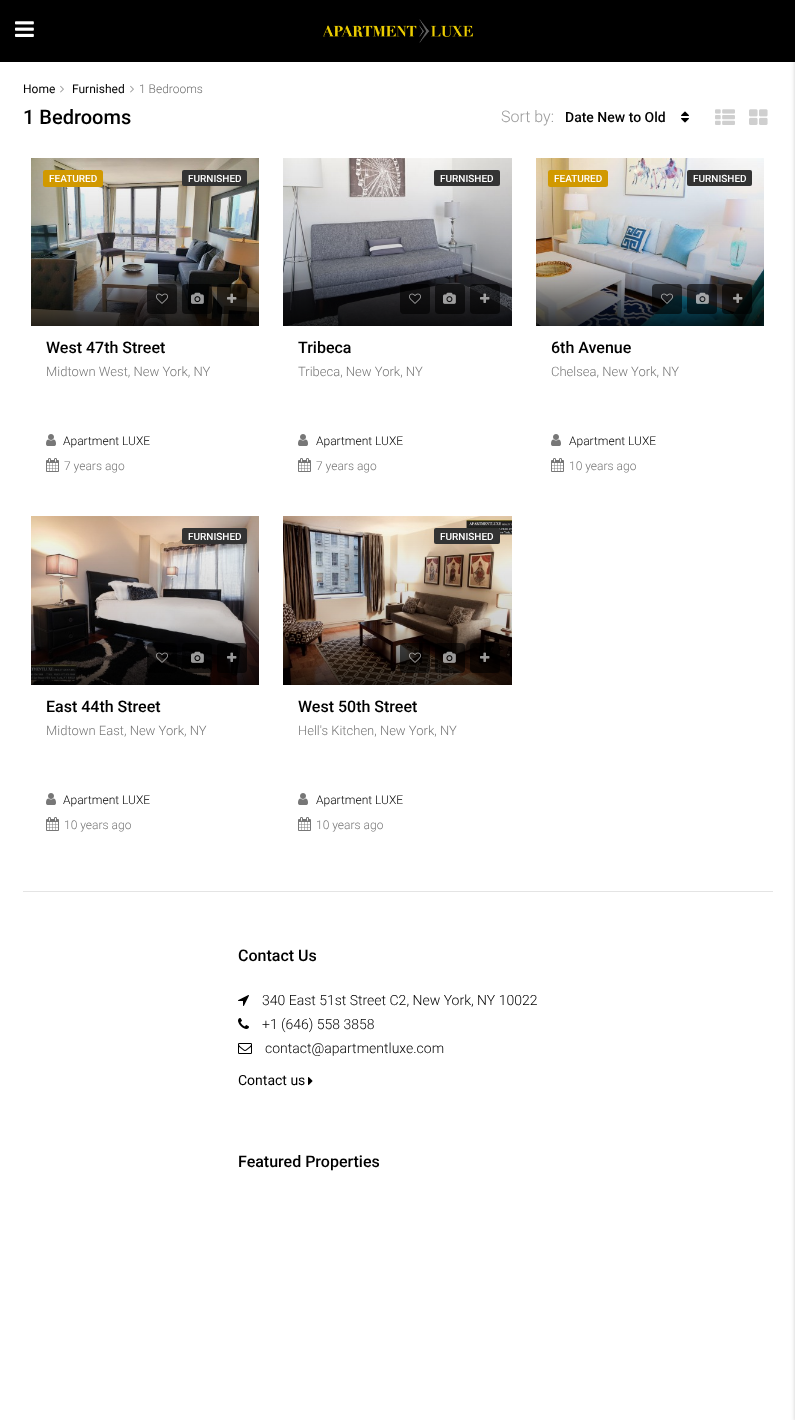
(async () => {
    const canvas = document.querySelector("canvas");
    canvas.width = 795;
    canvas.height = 1420;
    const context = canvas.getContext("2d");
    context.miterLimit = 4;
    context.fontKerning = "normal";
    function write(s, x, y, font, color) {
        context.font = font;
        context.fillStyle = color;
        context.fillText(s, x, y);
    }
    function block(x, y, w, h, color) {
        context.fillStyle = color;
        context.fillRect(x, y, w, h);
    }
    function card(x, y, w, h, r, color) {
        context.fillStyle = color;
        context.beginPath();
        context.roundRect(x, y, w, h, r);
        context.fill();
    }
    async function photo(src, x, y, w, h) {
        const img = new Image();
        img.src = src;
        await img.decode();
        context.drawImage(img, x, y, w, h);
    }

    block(0, 0, 795, 1420, "rgb(255, 255, 255)");
    block(0, 0, 795, 62, "rgb(0, 0, 0)");
    await photo("media/1.png", 15, 21, 19, 16);
    await photo("media/2.png", 323, 19, 150, 24);
    write("Home", 23, 93, "12px Roboto", "rgb(0, 0, 0)");
    await photo("media/3.png", 60, 85, 4, 8);
    write("Furnished", 72, 93, "12px Roboto", "rgb(0, 0, 0)");
    await photo("media/3.png", 130, 85, 4, 8);
    write("1 Bedrooms", 139, 93, "300 12px Roboto", "rgb(112, 112, 112)");
    write("1 Bedrooms", 23, 124, "500 20px Roboto", "rgb(0, 0, 0)");
    write("Sort by:", 501, 122, "300 16px Roboto", "rgb(155, 155, 155)");
    write("Date New to Old", 565, 122, "500 14px Roboto", "rgb(0, 0, 0)");
    await photo("media/4.png", 681, 111, 8, 12);
    await photo("media/5.png", 715, 109, 20, 16);
    await photo("media/6.png", 749, 109, 19, 16);
    context.fillStyle = "rgba(0, 0, 0, 0.2)";
    context.filter = "blur(2px)";
    context.beginPath();
    context.rect(795, 2, 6, 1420);
    context.fill();
    context.filter = "none";
    await photo("media/7.png", 31, 158, 228, 168);
    card(43, 170, 60, 17, 2.5, "rgb(209, 153, 0)");
    write("FEATURED", 49, 182, "500 10px Roboto", "rgb(255, 255, 255)");
    card(182, 170, 65, 16, 2, "rgb(51, 51, 51)");
    write("FURNISHED", 188, 182, "500 10px Roboto", "rgb(255, 255, 255)");
    card(147, 284, 30, 30, 4, "rgba(0, 0, 0, 0.6)");
    await photo("media/8.png", 156, 293, 12, 11);
    card(182, 284, 30, 30, 4, "rgba(0, 0, 0, 0.6)");
    await photo("media/9.png", 191, 292, 13, 12);
    card(217, 284, 30, 30, 4, "rgba(0, 0, 0, 0.6)");
    await photo("media/10.png", 227, 293, 10, 10);
    write("West 47th Street", 46, 353, "500 16px Roboto", "rgb(0, 0, 0)");
    write("Midtown West, New York, NY", 46, 376, "300 13px Roboto", "rgb(119, 119, 119)");
    await photo("media/11.png", 46, 434, 10, 12);
    write("Apartment LUXE", 63, 445, "300 12px Roboto", "rgb(0, 0, 0)");
    await photo("media/12.png", 46, 458, 13, 14);
    write("7 years ago", 64, 470, "300 12px Roboto", "rgb(119, 119, 119)");
    await photo("media/13.png", 283, 158, 229, 168);
    card(434, 170, 66, 16, 2, "rgb(51, 51, 51)");
    write("FURNISHED", 440, 182, "500 10px Roboto", "rgb(255, 255, 255)");
    card(400, 284, 30, 30, 4, "rgba(0, 0, 0, 0.6)");
    await photo("media/14.png", 409, 293, 12, 11);
    card(435, 284, 30, 30, 4, "rgba(0, 0, 0, 0.6)");
    await photo("media/15.png", 443, 292, 13, 12);
    card(470, 284, 30, 30, 4, "rgba(0, 0, 0, 0.6)");
    await photo("media/16.png", 480, 293, 10, 10);
    write("Tribeca", 298, 353, "500 16px Roboto", "rgb(0, 0, 0)");
    write("Tribeca, New York, NY", 298, 376, "300 13px Roboto", "rgb(119, 119, 119)");
    await photo("media/11.png", 298, 434, 10, 12);
    write("Apartment LUXE", 316, 445, "300 12px Roboto", "rgb(0, 0, 0)");
    await photo("media/12.png", 298, 458, 13, 14);
    write("7 years ago", 316, 470, "300 12px Roboto", "rgb(119, 119, 119)");
    await photo("media/17.png", 536, 158, 228, 168);
    card(548, 170, 60, 17, 2.5, "rgb(209, 153, 0)");
    write("FEATURED", 554, 182, "500 10px Roboto", "rgb(255, 255, 255)");
    card(687, 170, 65, 16, 2, "rgb(51, 51, 51)");
    write("FURNISHED", 693, 182, "500 10px Roboto", "rgb(255, 255, 255)");
    card(652, 284, 30, 30, 4, "rgba(0, 0, 0, 0.6)");
    await photo("media/18.png", 661, 293, 12, 11);
    card(687, 284, 30, 30, 4, "rgba(0, 0, 0, 0.6)");
    await photo("media/19.png", 696, 292, 13, 12);
    card(722, 284, 30, 30, 4, "rgba(0, 0, 0, 0.6)");
    await photo("media/20.png", 733, 293, 10, 10);
    write("6th Avenue", 551, 353, "500 16px Roboto", "rgb(0, 0, 0)");
    write("Chelsea, New York, NY", 551, 376, "300 13px Roboto", "rgb(119, 119, 119)");
    await photo("media/11.png", 551, 434, 10, 12);
    write("Apartment LUXE", 569, 445, "300 12px Roboto", "rgb(0, 0, 0)");
    await photo("media/12.png", 551, 458, 13, 14);
    write("10 years ago", 569, 470, "300 12px Roboto", "rgb(119, 119, 119)");
    await photo("media/21.png", 31, 516, 228, 169);
    card(182, 528, 65, 16, 2, "rgb(51, 51, 51)");
    write("FURNISHED", 188, 540, "500 10px Roboto", "rgb(255, 255, 255)");
    card(147, 643, 30, 30, 4, "rgba(0, 0, 0, 0.6)");
    await photo("media/22.png", 156, 652, 12, 11);
    card(182, 643, 30, 30, 4, "rgba(0, 0, 0, 0.6)");
    await photo("media/23.png", 191, 651, 13, 12);
    card(217, 643, 30, 30, 4, "rgba(0, 0, 0, 0.6)");
    await photo("media/24.png", 227, 652, 10, 10);
    write("East 44th Street", 46, 712, "500 16px Roboto", "rgb(0, 0, 0)");
    write("Midtown East, New York, NY", 46, 735, "300 13px Roboto", "rgb(119, 119, 119)");
    await photo("media/11.png", 46, 793, 10, 12);
    write("Apartment LUXE", 63, 804, "300 12px Roboto", "rgb(0, 0, 0)");
    await photo("media/12.png", 46, 817, 13, 14);
    write("10 years ago", 64, 829, "300 12px Roboto", "rgb(119, 119, 119)");
    await photo("media/25.png", 283, 516, 229, 169);
    card(434, 528, 66, 16, 2, "rgb(51, 51, 51)");
    write("FURNISHED", 440, 540, "500 10px Roboto", "rgb(255, 255, 255)");
    card(400, 643, 30, 30, 4, "rgba(0, 0, 0, 0.6)");
    await photo("media/26.png", 409, 652, 12, 11);
    card(435, 643, 30, 30, 4, "rgba(0, 0, 0, 0.6)");
    await photo("media/27.png", 443, 651, 13, 12);
    card(470, 643, 30, 30, 4, "rgba(0, 0, 0, 0.6)");
    await photo("media/28.png", 480, 652, 10, 10);
    write("West 50th Street", 298, 712, "500 16px Roboto", "rgb(0, 0, 0)");
    write("Hell's Kitchen, New York, NY", 298, 735, "300 13px Roboto", "rgb(119, 119, 119)");
    await photo("media/11.png", 298, 793, 10, 12);
    write("Apartment LUXE", 316, 804, "300 12px Roboto", "rgb(0, 0, 0)");
    await photo("media/12.png", 298, 817, 13, 14);
    write("10 years ago", 316, 829, "300 12px Roboto", "rgb(119, 119, 119)");
    block(23, 891, 750, 1, "rgb(228, 228, 228)");
    write("Contact Us", 238, 961, "500 16px Roboto", "rgb(0, 0, 0)");
    await photo("media/29.png", 238, 995, 11, 11);
    write("340 East 51st Street C2, New York, NY 10022", 262, 1005, "300 14px Roboto", "rgb(0, 0, 0)");
    await photo("media/30.png", 238, 1018, 11, 11);
    write("+1 (646) 558 3858", 262, 1029, "300 14px Roboto", "rgb(0, 0, 0)");
    await photo("media/31.png", 238, 1043, 14, 11);
    write("contact@apartmentluxe.com", 265, 1053, "300 14px Roboto", "rgb(0, 0, 0)");
    write("Contact us", 238, 1085, "14px Roboto", "rgb(0, 0, 0)");
    await photo("media/32.png", 308, 1077, 5, 8);
    write("Featured Properties", 238, 1167, "500 16px Roboto", "rgb(0, 0, 0)");
})();
